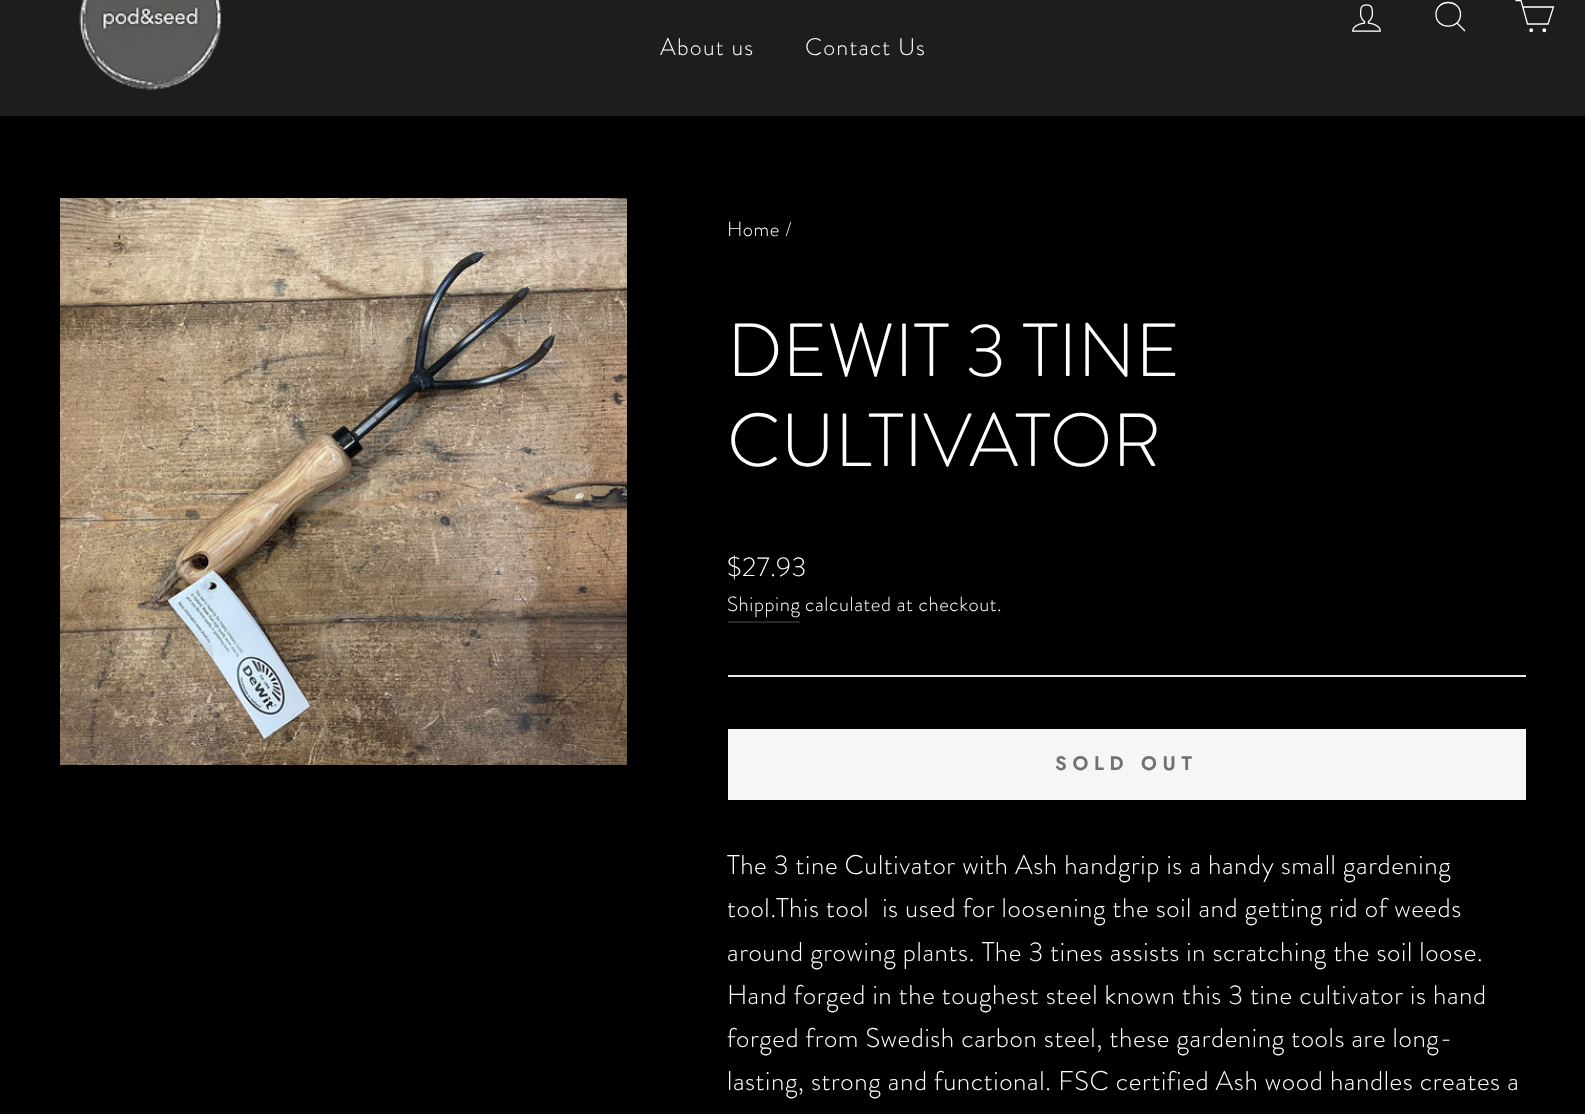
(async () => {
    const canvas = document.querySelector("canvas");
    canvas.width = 1585;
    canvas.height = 1114;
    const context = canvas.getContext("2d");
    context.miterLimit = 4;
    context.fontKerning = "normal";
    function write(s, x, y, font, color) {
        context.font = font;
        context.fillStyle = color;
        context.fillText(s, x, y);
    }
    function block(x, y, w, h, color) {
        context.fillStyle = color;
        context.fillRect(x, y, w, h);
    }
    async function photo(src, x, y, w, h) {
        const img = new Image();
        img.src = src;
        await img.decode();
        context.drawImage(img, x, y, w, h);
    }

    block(0, 0, 1585, 1114, "rgb(0, 0, 0)");
    block(0, 0, 1585, 116, "rgb(28, 29, 29)");
    await photo("media/1.png", 79, 0, 143, 91);
    await photo("media/2.png", 1352, 4, 29, 28);
    context.beginPath();
    context.moveTo(1460.5, 14.5);
    context.bezierCurveTo(1460.5, 30, 1436, 30, 1436, 14.5);
    context.bezierCurveTo(1436, -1.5, 1460.5, -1.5, 1460.5, 14.5);
    context.closePath();
    context.moveTo(1465, 31);
    context.lineTo(1457, 23);
    context.strokeStyle = "rgb(255, 255, 255)";
    context.lineWidth = 1.3;
    context.stroke();
    context.beginPath();
    context.moveTo(1522.5, 7);
    context.lineTo(1553.5, 7);
    context.lineTo(1548, 24);
    context.lineTo(1527.5, 24);
    context.lineTo(1521, 0.5);
    context.lineTo(1515.5, 0.5);
    context.stroke();
    context.fillStyle = "rgb(255, 255, 255)";
    context.beginPath();
    context.arc(1531.2, 30.3, 1.3, 0, Math.PI * 2);
    context.fill();
    context.stroke();
    context.beginPath();
    context.arc(1544.3, 30.3, 1.3, 0, Math.PI * 2);
    context.fill();
    context.stroke();
    context.letterSpacing = "1.25px";
    write("About us", 660, 55, "300 24px Brandon Grotesque", "rgb(255, 255, 255)");
    write("Contact Us", 805, 55, "300 24px Brandon Grotesque", "rgb(255, 255, 255)");
    await photo("media/3.png", 60, 198, 567, 567);
    context.letterSpacing = "0.6px";
    write("Home", 727, 236, "300 20.5px Brandon Grotesque", "rgb(255, 255, 255)");
    write("/", 785, 236, "300 20.5px Brandon Grotesque", "rgb(232, 232, 225)");
    context.letterSpacing = "0px";
    write("DEWIT 3 TINE", 727, 376, "300 75px Brandon Grotesque", "rgb(255, 255, 255)");
    write("CULTIVATOR", 727, 466, "300 75px Brandon Grotesque", "rgb(255, 255, 255)");
    context.letterSpacing = "0.6px";
    write("$27.93", 727, 576, "300 27px Brandon Grotesque", "rgb(255, 255, 255)");
    block(728, 621, 72, 2, "rgb(38, 38, 38)");
    write("Shipping", 727, 611, "300 20.5px Brandon Grotesque", "rgb(255, 255, 255)");
    write("calculated at checkout.", 805, 611, "300 20.5px Brandon Grotesque", "rgb(255, 255, 255)");
    block(728, 675, 798, 2, "rgb(232, 232, 225)");
    block(728, 729, 798, 71, "rgb(246, 246, 246)");
    context.letterSpacing = "5.75px";
    write("SOLD OUT", 1055, 770, "600 19.5px Jost", "rgb(113, 113, 113)");
    context.letterSpacing = "0.6px";
    write("The 3 tine Cultivator with Ash handgrip is a handy small gardening", 727, 874, "300 27px Brandon Grotesque", "rgb(255, 255, 255)");
    write("tool.This tool  is used for loosening the soil and getting rid of weeds", 727, 917, "300 27px Brandon Grotesque", "rgb(255, 255, 255)");
    write("around growing plants. The 3 tines assists in scratching the soil loose.", 727, 961, "300 27px Brandon Grotesque", "rgb(255, 255, 255)");
    write("Hand forged in the toughest steel known this 3 tine cultivator is hand", 727, 1004, "300 27px Brandon Grotesque", "rgb(255, 255, 255)");
    write("forged from Swedish carbon steel, these gardening tools are long-", 727, 1047, "300 27px Brandon Grotesque", "rgb(255, 255, 255)");
    write("lasting, strong and functional. FSC certified Ash wood handles creates a", 727, 1090, "300 27px Brandon Grotesque", "rgb(255, 255, 255)");
})();
